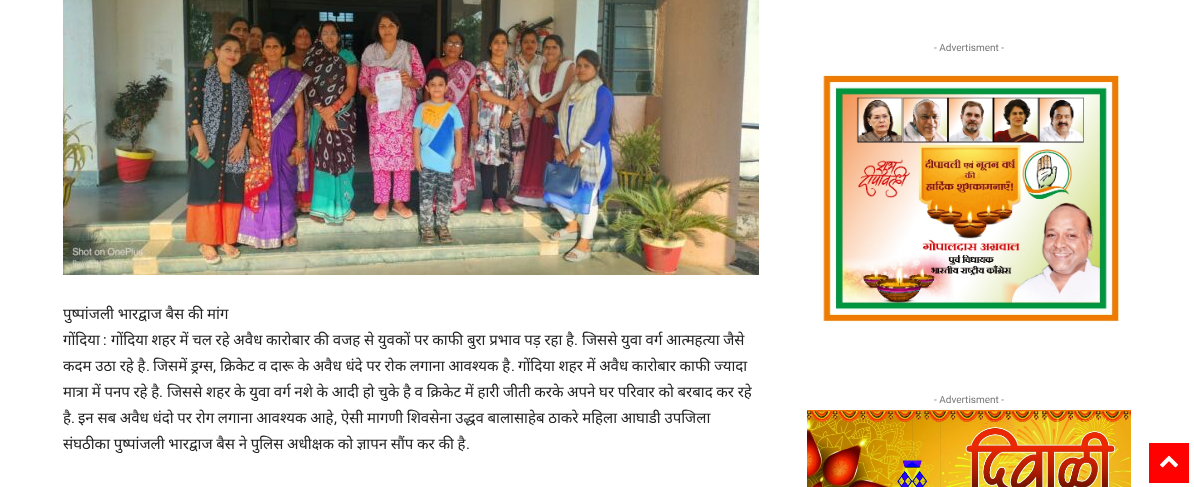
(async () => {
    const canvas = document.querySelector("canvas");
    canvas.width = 1194;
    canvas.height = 487;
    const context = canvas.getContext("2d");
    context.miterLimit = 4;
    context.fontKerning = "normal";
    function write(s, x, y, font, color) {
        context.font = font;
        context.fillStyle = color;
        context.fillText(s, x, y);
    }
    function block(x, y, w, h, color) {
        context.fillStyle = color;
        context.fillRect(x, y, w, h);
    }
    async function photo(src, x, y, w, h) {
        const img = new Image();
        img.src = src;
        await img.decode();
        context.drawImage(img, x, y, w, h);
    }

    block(0, 0, 1194, 487, "rgb(255, 255, 255)");
    await photo("media/1.png", 63, 0, 696, 275);
    context.wordSpacing = "-0.2px";
    write("पुष्पांजली भारद्वाज बैस की मांग", 63, 319, "15px Noto Sans", "rgb(34, 34, 34)");
    context.wordSpacing = "0px";
    write("गोंदिया", 63, 345, "15px Noto Sans", "rgb(34, 34, 34)");
    write(":", 103, 345, "15px Roboto", "rgb(34, 34, 34)");
    context.wordSpacing = "-0.2px";
    write("गोंदिया शहर में चल रहे अवैध कारोबार की वजह से युवकों पर काफी बुरा प्रभाव पड़ रहा है", 111, 345, "15px Noto Sans", "rgb(34, 34, 34)");
    write("जिससे युवा वर्ग आत्महत्या जैसे", 582, 345, "15px Noto Sans", "rgb(34, 34, 34)");
    context.wordSpacing = "0px";
    write(".", 574, 345, "15px Roboto", "rgb(34, 34, 34)");
    context.wordSpacing = "-0.2px";
    write("कदम उठा रहे है", 63, 371, "15px Noto Sans", "rgb(34, 34, 34)");
    context.wordSpacing = "0px";
    write(".", 146, 371, "15px Roboto", "rgb(34, 34, 34)");
    context.wordSpacing = "-0.2px";
    write("जिसमें ड्रग्स", 153, 371, "15px Noto Sans", "rgb(34, 34, 34)");
    context.wordSpacing = "0px";
    write(",", 213, 371, "15px Roboto", "rgb(34, 34, 34)");
    context.wordSpacing = "-0.2px";
    write("क्रिकेट व दारू के अवैध धंदे पर रोक लगाना आवश्यक है", 220, 371, "15px Noto Sans", "rgb(34, 34, 34)");
    context.wordSpacing = "0px";
    write(".", 511, 371, "15px Roboto", "rgb(34, 34, 34)");
    context.wordSpacing = "-0.2px";
    write("गोंदिया शहर में अवैध कारोबार काफी ज्यादा", 518, 371, "15px Noto Sans", "rgb(34, 34, 34)");
    write("मात्रा में पनप रहे है", 63, 397, "15px Noto Sans", "rgb(34, 34, 34)");
    context.wordSpacing = "0px";
    write(".", 159, 397, "15px Roboto", "rgb(34, 34, 34)");
    context.wordSpacing = "-0.2px";
    write("जिससे शहर के युवा वर्ग नशे के आदी हो चुके है व क्रिकेट में हारी जीती करके अपने घर परिवार को बरबाद कर रहे", 167, 397, "15px Noto Sans", "rgb(34, 34, 34)");
    context.wordSpacing = "0px";
    write("है", 63, 423, "15px Noto Sans", "rgb(34, 34, 34)");
    write(".", 71, 423, "15px Roboto", "rgb(34, 34, 34)");
    context.wordSpacing = "-0.2px";
    write("इन सब अवैध धंदो पर रोग लगाना आवश्यक आहे", 78, 423, "15px Noto Sans", "rgb(34, 34, 34)");
    context.wordSpacing = "0px";
    write(",", 334, 423, "15px Roboto", "rgb(34, 34, 34)");
    context.wordSpacing = "-0.2px";
    write("ऐसी मागणी शिवसेना उद्धव बालासाहेब ठाकरे महिला आघाडी उपजिला", 341, 423, "15px Noto Sans", "rgb(34, 34, 34)");
    write("संघठीका पुष्पांजली भारद्वाज बैस ने पुलिस अधीक्षक को ज्ञापन सौंप कर की है", 63, 449, "15px Noto Sans", "rgb(34, 34, 34)");
    context.wordSpacing = "0px";
    write(".", 466, 449, "15px Roboto", "rgb(34, 34, 34)");
    write("- Advertisment -", 934, 51, "10px Roboto", "rgb(118, 118, 118)");
    await photo("media/2.png", 822, 75, 297, 247);
    write("- Advertisment -", 934, 403, "10px Roboto", "rgb(118, 118, 118)");
    await photo("media/3.png", 807, 410, 324, 77);
    block(1149, 443, 40, 40, "rgb(255, 1, 1)");
    await photo("media/4.png", 1160, 455, 18, 13);
})();
